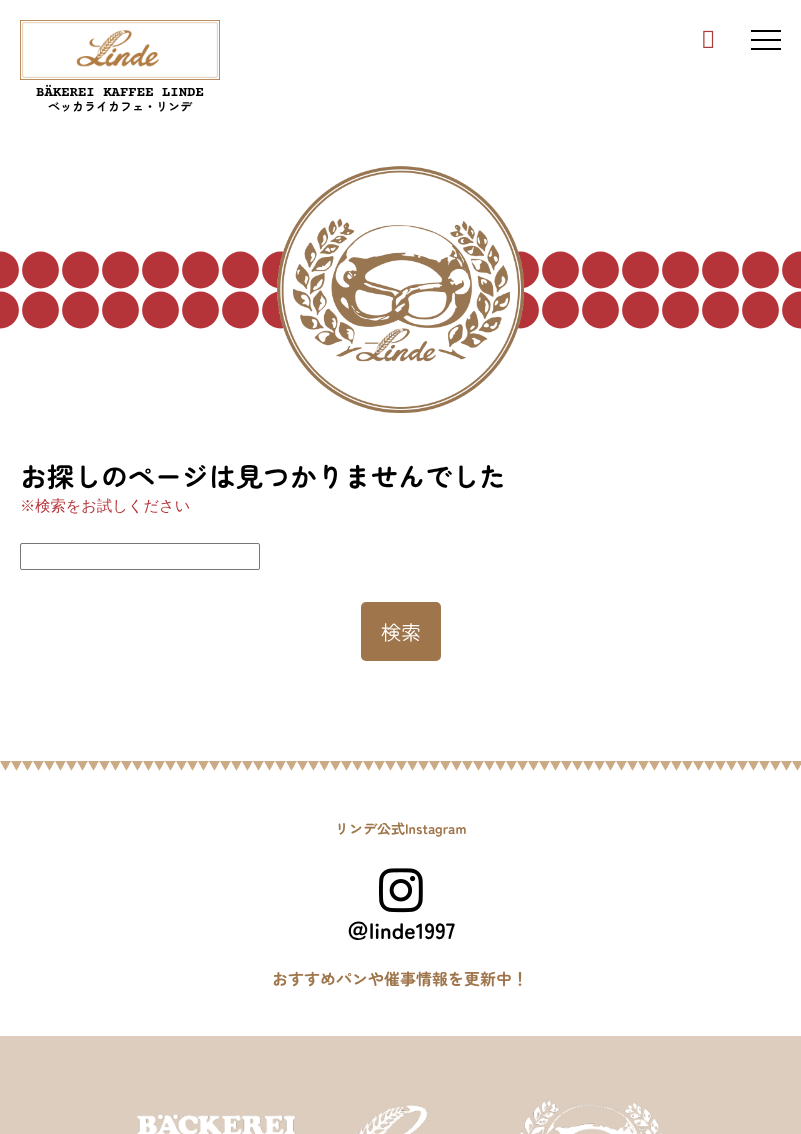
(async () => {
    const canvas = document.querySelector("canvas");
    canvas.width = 801;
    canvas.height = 1134;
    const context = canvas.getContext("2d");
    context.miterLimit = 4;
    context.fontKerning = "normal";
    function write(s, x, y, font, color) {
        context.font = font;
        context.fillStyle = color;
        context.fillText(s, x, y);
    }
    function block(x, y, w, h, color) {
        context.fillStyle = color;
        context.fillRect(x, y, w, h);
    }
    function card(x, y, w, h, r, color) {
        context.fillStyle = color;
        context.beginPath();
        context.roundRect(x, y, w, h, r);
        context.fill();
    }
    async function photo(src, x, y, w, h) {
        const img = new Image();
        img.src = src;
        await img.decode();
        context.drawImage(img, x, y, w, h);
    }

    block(0, 0, 801, 1134, "rgb(255, 255, 255)");
    await photo("media/1.png", 703, 30, 11, 18);
    block(751, 30, 30, 2, "rgb(0, 0, 0)");
    block(751, 39, 30, 2, "rgb(0, 0, 0)");
    block(751, 48, 30, 2, "rgb(0, 0, 0)");
    await photo("media/2.png", 20, 20, 200, 60);
    write("BÄKEREI KAFFEE LINDE", 36, 96, "bold 14px Courier Prime", "rgb(0, 0, 0)");
    write("ベッカライカフェ・リンデ", 48, 111, "bold 12px Zen Maru Gothic", "rgb(0, 0, 0)");
    context.beginPath();
    context.moveTo(0.5, 270);
    context.lineTo(800.7, 270);
    context.strokeStyle = "rgb(181, 52, 57)";
    context.lineWidth = 36.8;
    context.lineCap = "round";
    context.setLineDash([0, 40]);
    context.stroke();
    context.beginPath();
    context.moveTo(0.5, 310);
    context.lineTo(800.7, 310);
    context.stroke();
    await photo("media/3.png", 277, 166, 247, 247);
    write("お探しのページは見つかりませんでした", 20, 487, "bold 27px Zen Maru Gothic", "rgb(0, 0, 0)");
    write("※検索をお試しください", 20, 511, "500 15.25px WenQuanYi Zen Hei", "rgb(181, 52, 57)");
    context.beginPath();
    context.roundRect(20.5, 543.5, 239, 26, 1.5);
    context.strokeStyle = "rgb(118, 118, 118)";
    context.lineWidth = 1;
    context.setLineDash([]);
    context.stroke();
    card(361, 602, 80, 59, 5, "rgb(159, 117, 76)");
    write("検索", 381, 640, "20px Zen Maru Gothic", "rgb(255, 255, 255)");
    await photo("media/4.png", 0, 761, 801, 10);
    write("リンデ公式Instagram", 335, 834, "bold 14px Zen Maru Gothic", "rgb(159, 117, 76)");
    await photo("media/5.png", 379, 868, 44, 45);
    write("＠linde1997", 347, 939, "bold 22px Zen Maru Gothic", "rgb(0, 0, 0)");
    write("おすすめパンや催事情報を更新中！", 272, 985, "bold 16px Zen Maru Gothic", "rgb(159, 117, 76)");
    block(0, 1036, 801, 98, "rgb(221, 205, 190)");
    await photo("media/6.png", 137, 1100, 526, 34);
})();
